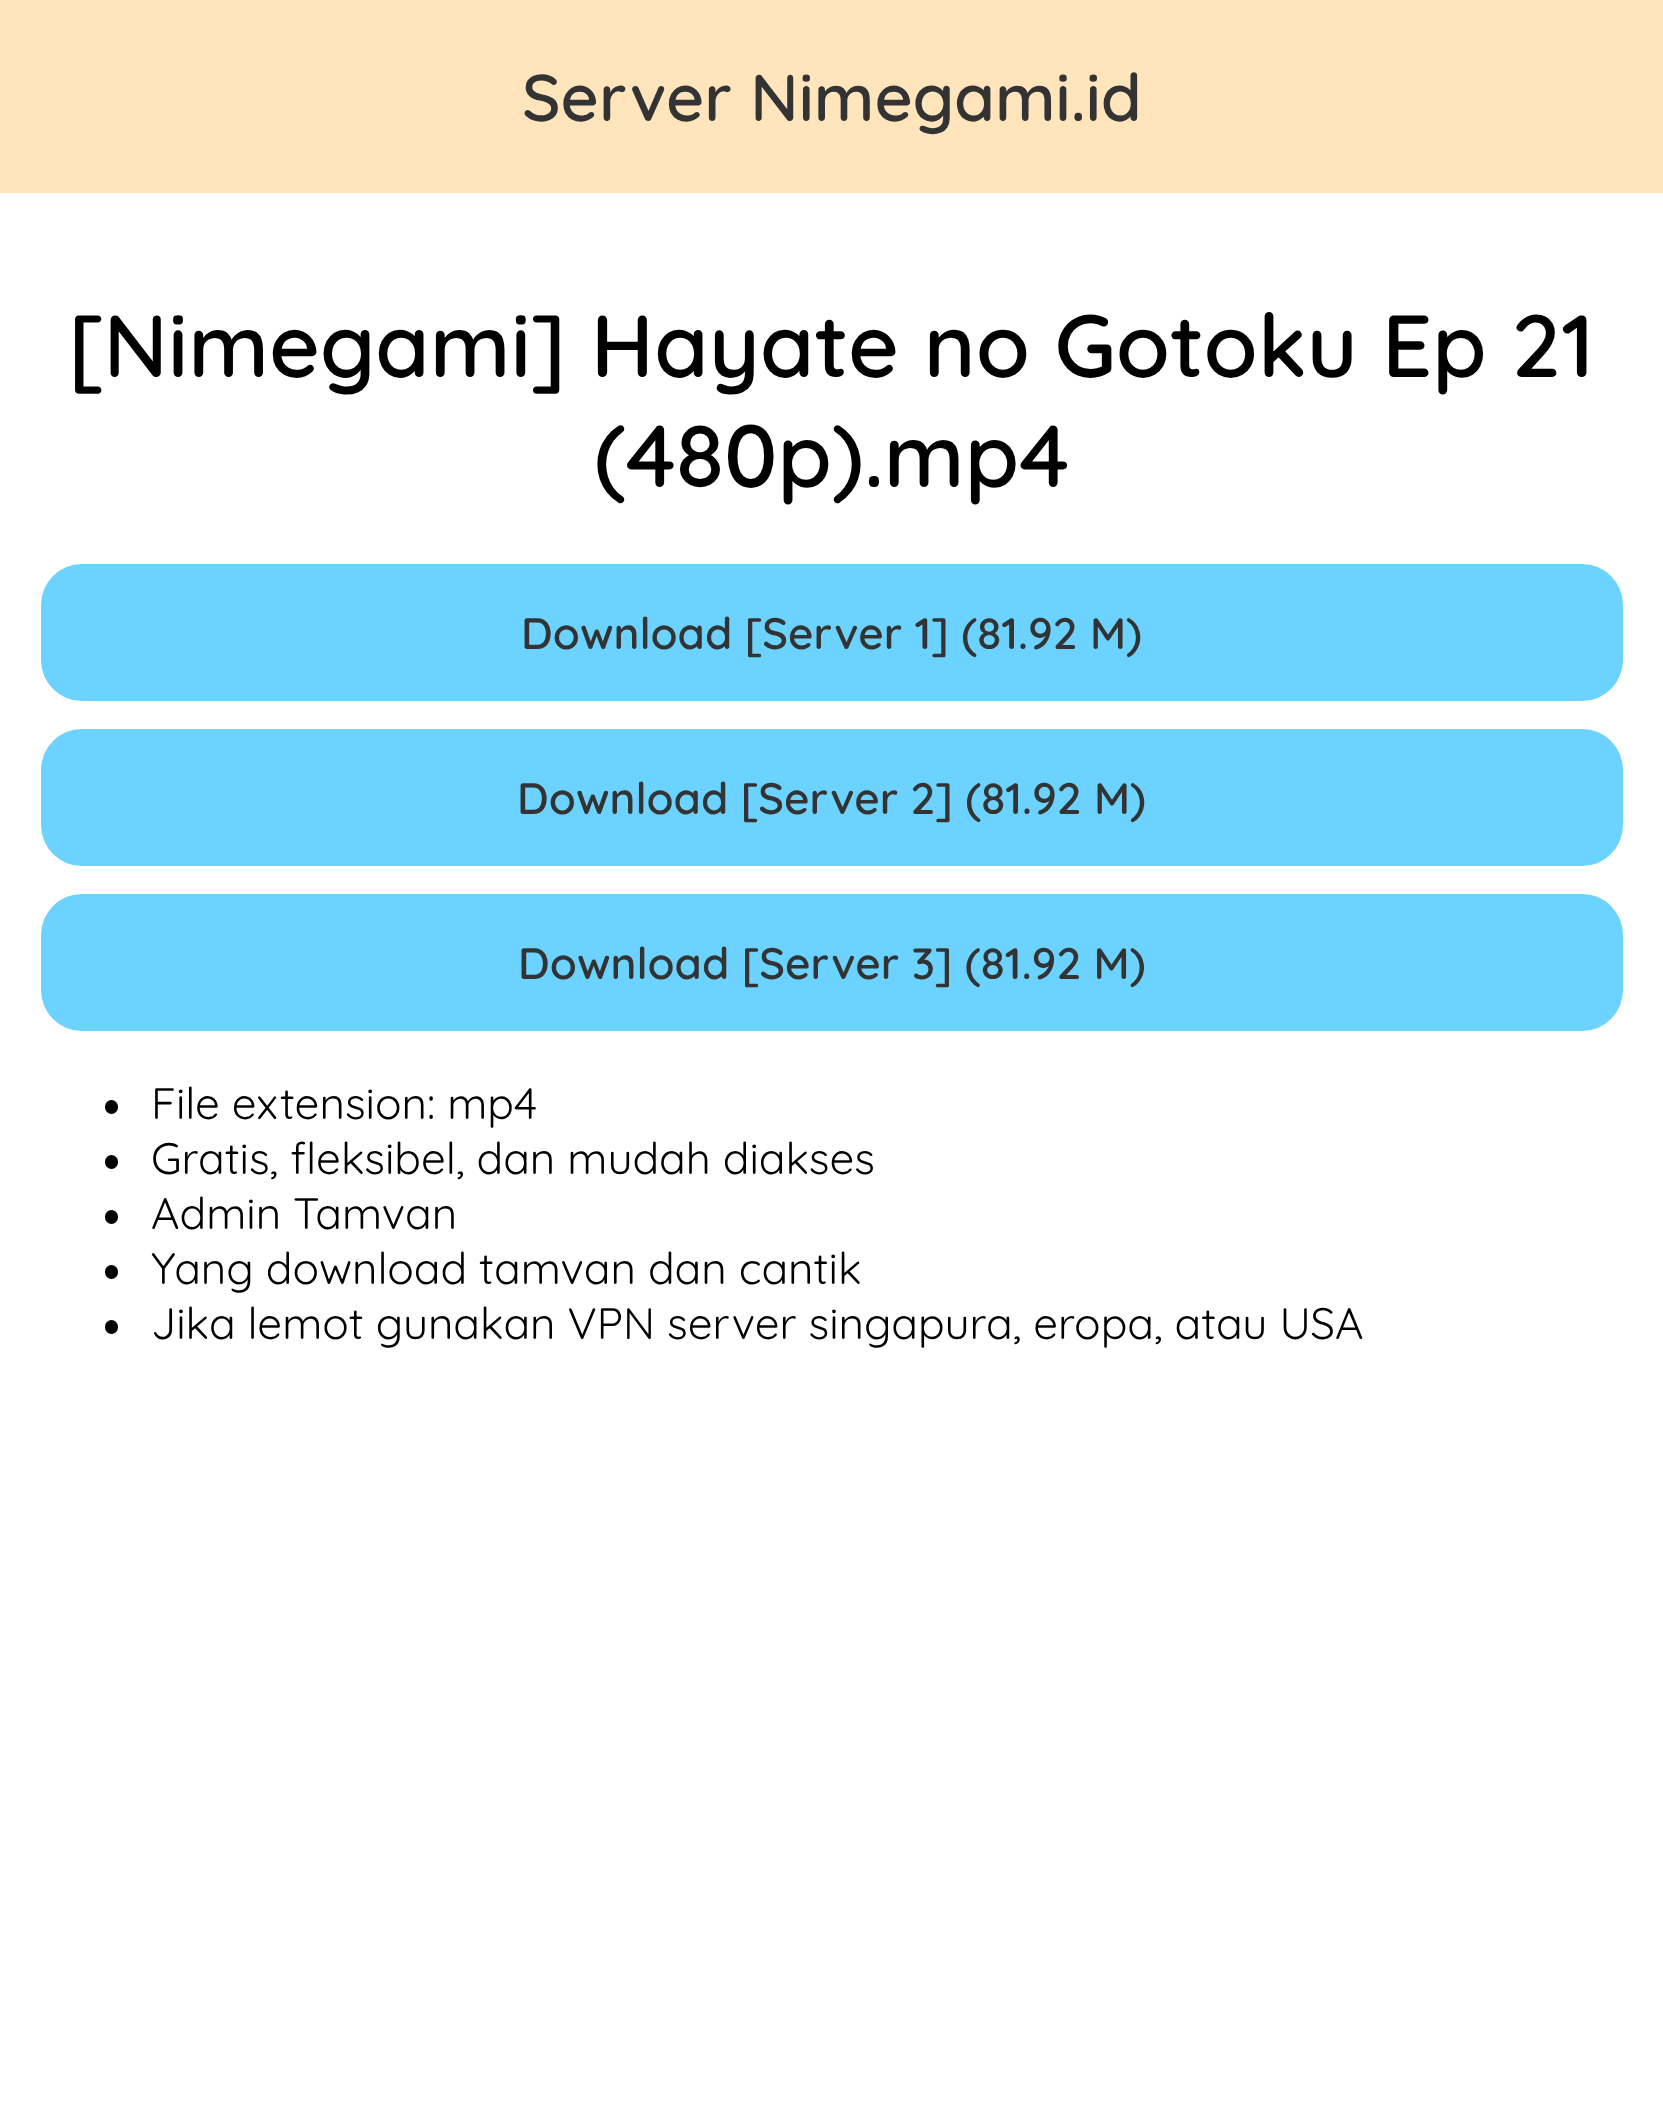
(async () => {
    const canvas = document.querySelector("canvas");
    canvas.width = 1663;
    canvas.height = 2125;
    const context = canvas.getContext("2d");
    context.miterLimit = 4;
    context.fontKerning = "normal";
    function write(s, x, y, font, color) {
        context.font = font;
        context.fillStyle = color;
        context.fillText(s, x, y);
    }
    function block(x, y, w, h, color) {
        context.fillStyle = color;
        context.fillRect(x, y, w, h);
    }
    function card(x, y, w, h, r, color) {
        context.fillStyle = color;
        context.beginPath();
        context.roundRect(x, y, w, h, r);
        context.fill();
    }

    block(0, 0, 1663, 2125, "rgb(255, 255, 255)");
    block(0, 0, 1663, 193, "rgb(255, 228, 188)");
    write("Server Nimegami.id", 522, 121, "600 66px Quicksand", "rgb(51, 51, 51)");
    write("[Nimegami] Hayate no Gotoku Ep 21", 68, 377, "600 88px Quicksand", "rgb(0, 0, 0)");
    write("(480p).mp4", 594, 487, "600 88px Quicksand", "rgb(0, 0, 0)");
    card(41, 564, 1582, 137, 41, "rgb(108, 210, 255)");
    write("Download [Server 1] (81.92 M)", 521, 649, "600 44px Quicksand", "rgb(51, 51, 51)");
    card(41, 729, 1582, 137, 41, "rgb(108, 210, 255)");
    write("Download [Server 2] (81.92 M)", 517, 814, "600 44px Quicksand", "rgb(51, 51, 51)");
    card(41, 894, 1582, 137, 41, "rgb(108, 210, 255)");
    write("Download [Server 3] (81.92 M)", 518, 979, "600 44px Quicksand", "rgb(51, 51, 51)");
    card(105, 1100, 13, 14, 6.5, "rgb(0, 0, 0)");
    write("File extension: mp4", 151, 1119, "44px Quicksand", "rgb(0, 0, 0)");
    card(105, 1155, 13, 14, 6.5, "rgb(0, 0, 0)");
    write("Gratis, fleksibel, dan mudah diakses", 151, 1174, "44px Quicksand", "rgb(0, 0, 0)");
    card(105, 1210, 13, 14, 6.5, "rgb(0, 0, 0)");
    write("Admin Tamvan", 151, 1229, "44px Quicksand", "rgb(0, 0, 0)");
    card(105, 1265, 13, 14, 6.5, "rgb(0, 0, 0)");
    write("Yang download tamvan dan cantik", 151, 1284, "44px Quicksand", "rgb(0, 0, 0)");
    card(105, 1320, 13, 14, 6.5, "rgb(0, 0, 0)");
    write("Jika lemot gunakan VPN server singapura, eropa, atau USA", 151, 1339, "44px Quicksand", "rgb(0, 0, 0)");
})();
